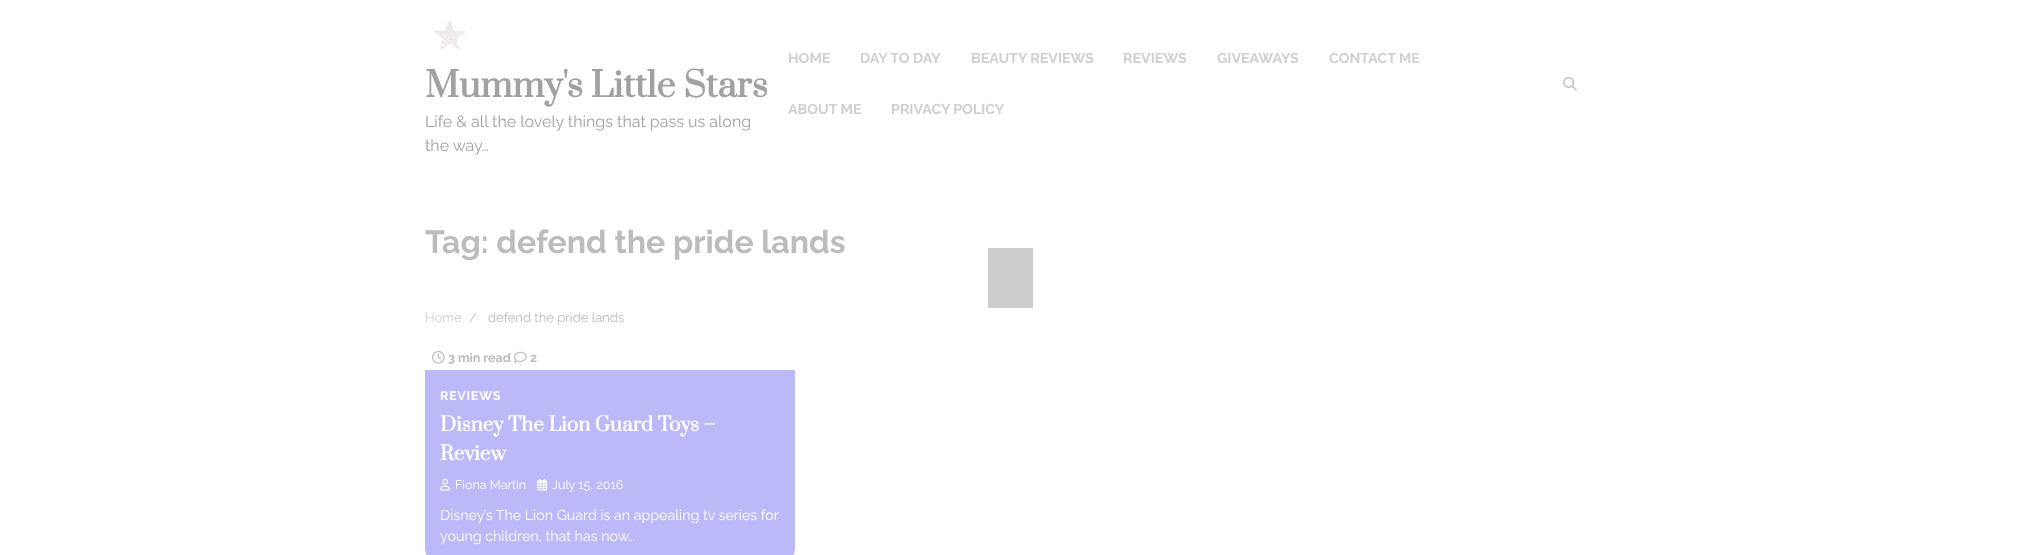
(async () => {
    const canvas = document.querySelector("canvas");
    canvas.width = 2020;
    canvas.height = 555;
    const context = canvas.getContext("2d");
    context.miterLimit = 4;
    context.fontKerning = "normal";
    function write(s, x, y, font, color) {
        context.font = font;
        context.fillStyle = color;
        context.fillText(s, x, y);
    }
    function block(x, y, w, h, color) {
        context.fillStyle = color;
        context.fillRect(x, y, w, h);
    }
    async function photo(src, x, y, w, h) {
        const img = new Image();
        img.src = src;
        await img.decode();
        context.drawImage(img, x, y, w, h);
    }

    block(0, 0, 2020, 555, "rgb(255, 255, 255)");
    await photo("media/1.png", 433, 18, 34, 32);
    write("Mummy's Little Stars", 425, 97, "bold 33.75px Prata", "rgb(161, 161, 161)");
    write("Life & all the lovely things that pass us along", 425, 127, "16px Raleway", "rgb(161, 161, 161)");
    write("the way…", 425, 151, "16px Raleway", "rgb(161, 161, 161)");
    write("HOME", 788, 63, "bold 14.25px Raleway", "rgb(208, 207, 209)");
    write("DAY TO DAY", 860, 63, "bold 14.25px Raleway", "rgb(208, 207, 209)");
    write("BEAUTY REVIEWS", 971, 63, "bold 14.25px Raleway", "rgb(208, 207, 209)");
    write("REVIEWS", 1123, 63, "bold 14.25px Raleway", "rgb(208, 207, 209)");
    write("GIVEAWAYS", 1217, 63, "bold 14.25px Raleway", "rgb(208, 207, 209)");
    write("CONTACT ME", 1329, 63, "bold 14.25px Raleway", "rgb(208, 207, 209)");
    write("ABOUT ME", 788, 114, "bold 14.25px Raleway", "rgb(208, 207, 209)");
    write("PRIVACY POLICY", 891, 114, "bold 14.25px Raleway", "rgb(208, 207, 209)");
    await photo("media/2.png", 1563, 76, 14, 15);
    write("Tag: defend the pride lands", 425, 253, "bold 32px Raleway", "rgb(188, 187, 189)");
    write("Home", 425, 322, "13px Raleway", "rgb(208, 207, 209)");
    write("/", 469, 322, "13px Raleway", "rgb(188, 187, 189)");
    write("defend the pride lands", 488, 322, "13px Raleway", "rgb(188, 187, 189)");
    await photo("media/3.png", 432, 350, 13, 14);
    write("3 min read", 448, 362, "bold 12.5px Raleway", "rgb(188, 187, 189)");
    await photo("media/4.png", 514, 351, 13, 12);
    write("2", 530, 362, "bold 12.5px Raleway", "rgb(188, 187, 189)");
    context.fillStyle = "rgb(188, 185, 248)";
    context.beginPath();
    context.moveTo(425, 370);
    context.lineTo(795, 370);
    context.lineTo(795, 548);
    context.bezierCurveTo(795, 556.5, 788.5, 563, 780, 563);
    context.lineTo(440, 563);
    context.bezierCurveTo(431.5, 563, 425, 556.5, 425, 548);
    context.closePath();
    context.fill();
    context.letterSpacing = "0.75px";
    write("REVIEWS", 440, 400, "bold 12.5px Raleway", "rgb(255, 255, 255)");
    context.letterSpacing = "0px";
    write("Disney The Lion Guard Toys –", 440, 431, "bold 19px Prata", "rgb(255, 255, 255)");
    write("Review", 440, 460, "bold 19px Prata", "rgb(255, 255, 255)");
    await photo("media/5.png", 440, 478, 11, 13);
    write("Fiona Martin", 455, 489, "12.5px Raleway", "rgb(255, 255, 255)");
    await photo("media/6.png", 537, 478, 11, 13);
    write("July 15, 2016", 552, 489, "12.5px Raleway", "rgb(255, 255, 255)");
    write("Disney’s The Lion Guard is an appealing tv series for", 440, 520, "14.25px Raleway", "rgb(255, 255, 255)");
    write("young children, that has now…", 440, 541, "14.25px Raleway", "rgb(255, 255, 255)");
    block(988, 248, 45, 60, "rgb(205, 205, 205)");
})();
